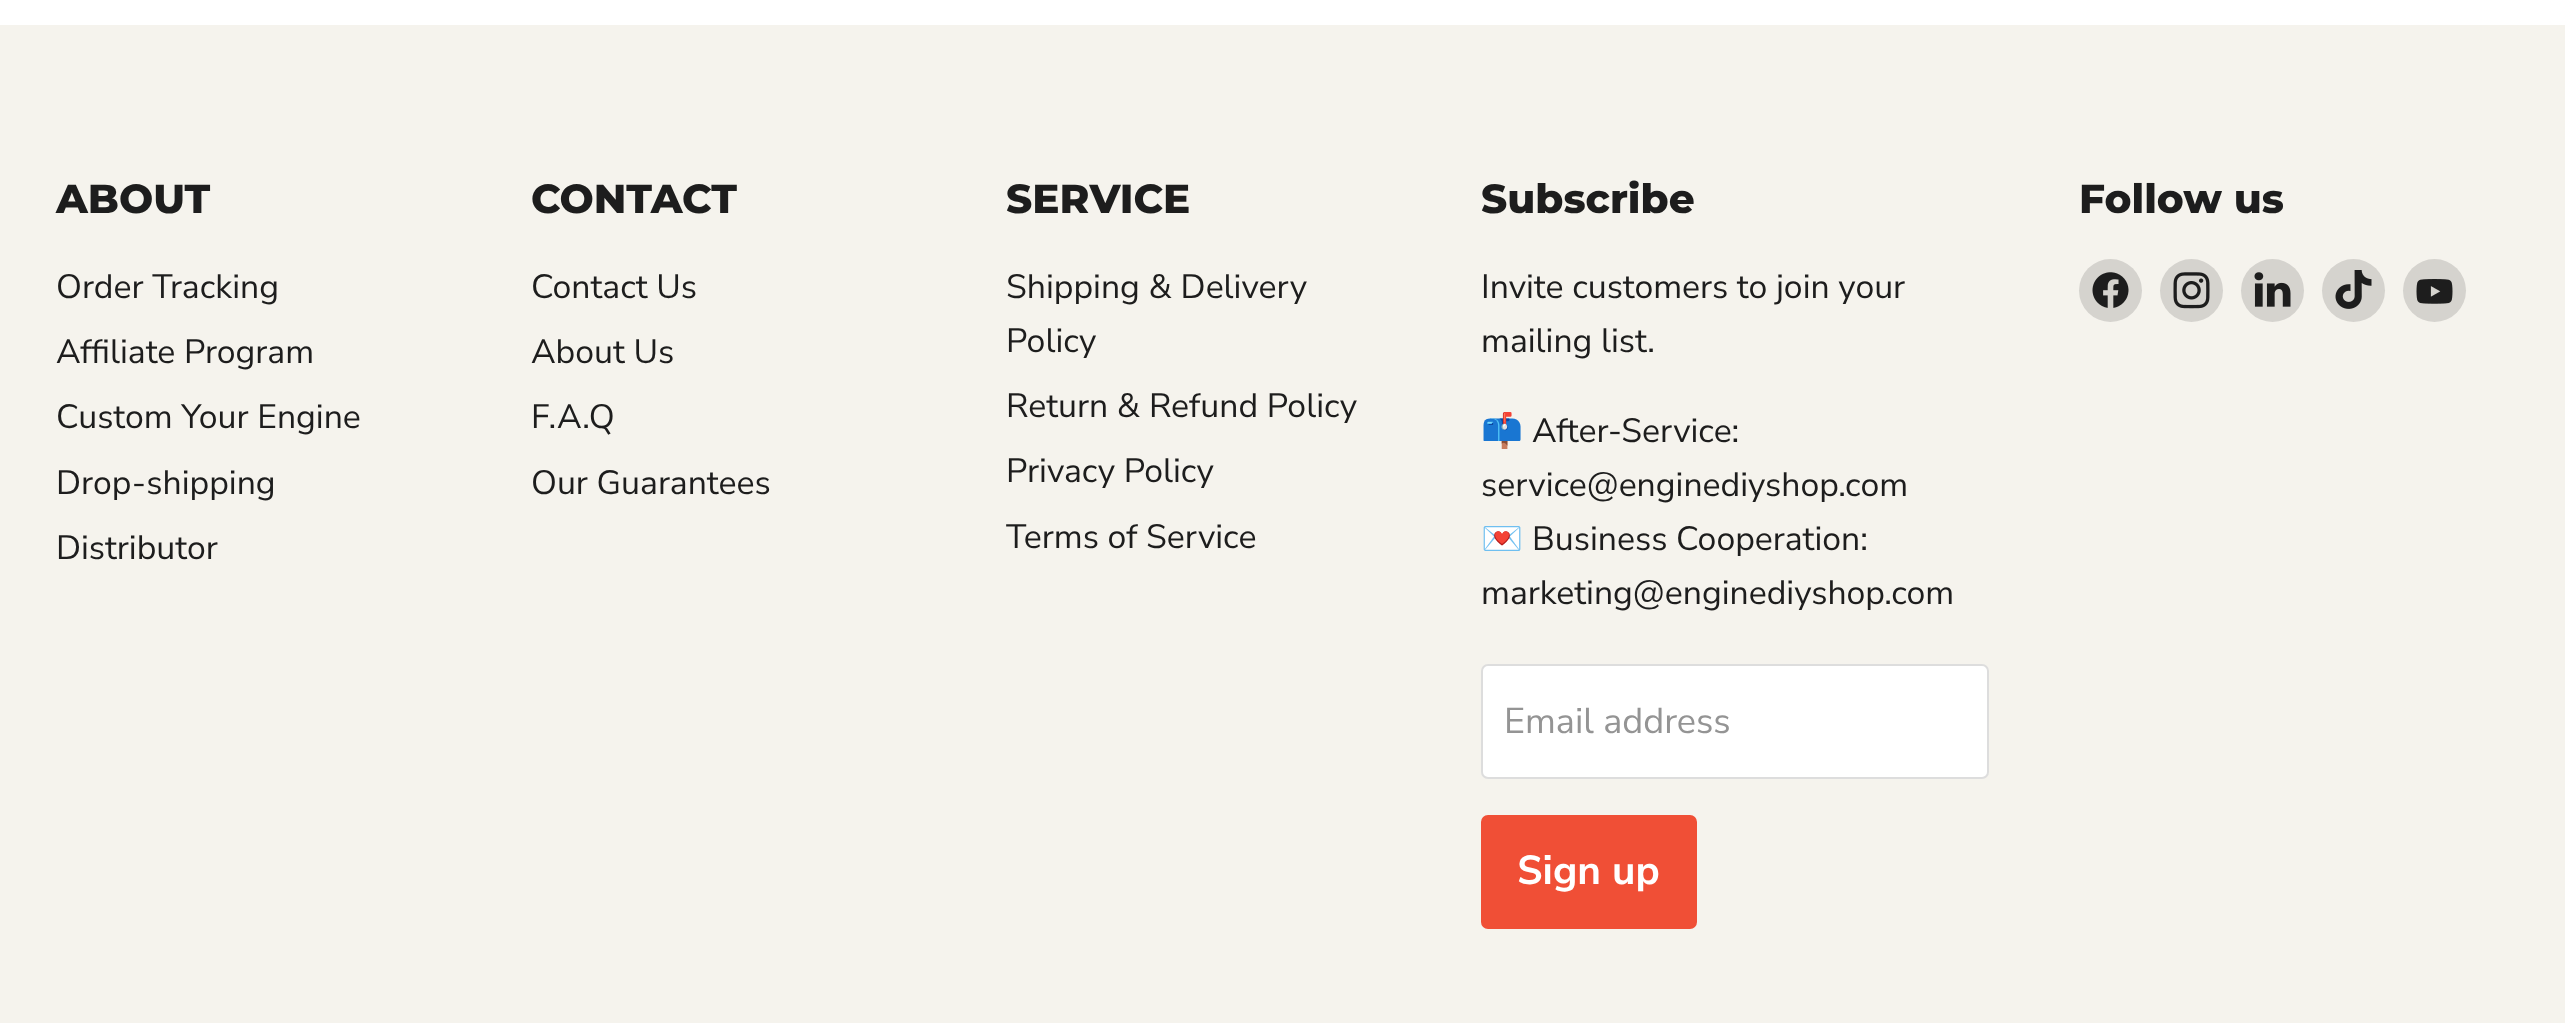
(async () => {
    const canvas = document.querySelector("canvas");
    canvas.width = 2565;
    canvas.height = 1023;
    const context = canvas.getContext("2d");
    context.miterLimit = 4;
    context.fontKerning = "normal";
    function write(s, x, y, font, color) {
        context.font = font;
        context.fillStyle = color;
        context.fillText(s, x, y);
    }
    function block(x, y, w, h, color) {
        context.fillStyle = color;
        context.fillRect(x, y, w, h);
    }
    async function photo(src, x, y, w, h) {
        const img = new Image();
        img.src = src;
        await img.decode();
        context.drawImage(img, x, y, w, h);
    }

    block(0, 0, 2565, 1023, "rgb(255, 255, 255)");
    block(0, 25, 2565, 998, "rgb(245, 243, 237)");
    write("ABOUT", 56, 213, "800 40.5px Montserrat", "rgb(29, 29, 29)");
    write("Order Tracking", 56, 298, "33.75px Nunito Sans", "rgb(29, 29, 29)");
    write("Affiliate Program", 56, 363, "33.75px Nunito Sans", "rgb(29, 29, 29)");
    write("Custom Your Engine", 56, 428, "33.75px Nunito Sans", "rgb(29, 29, 29)");
    write("Drop-shipping", 56, 494, "33.75px Nunito Sans", "rgb(29, 29, 29)");
    write("Distributor", 56, 559, "33.75px Nunito Sans", "rgb(29, 29, 29)");
    write("CONTACT", 531, 213, "800 40.5px Montserrat", "rgb(29, 29, 29)");
    write("Contact Us", 531, 298, "33.75px Nunito Sans", "rgb(29, 29, 29)");
    write("About Us", 531, 363, "33.75px Nunito Sans", "rgb(29, 29, 29)");
    write("F.A.Q", 531, 428, "33.75px Nunito Sans", "rgb(29, 29, 29)");
    write("Our Guarantees", 531, 494, "33.75px Nunito Sans", "rgb(29, 29, 29)");
    write("SERVICE", 1006, 213, "800 40.5px Montserrat", "rgb(29, 29, 29)");
    write("Shipping & Delivery", 1006, 298, "33.75px Nunito Sans", "rgb(29, 29, 29)");
    write("Policy", 1006, 352, "33.75px Nunito Sans", "rgb(29, 29, 29)");
    write("Return & Refund Policy", 1006, 417, "33.75px Nunito Sans", "rgb(29, 29, 29)");
    write("Privacy Policy", 1006, 482, "33.75px Nunito Sans", "rgb(29, 29, 29)");
    write("Terms of Service", 1006, 548, "33.75px Nunito Sans", "rgb(29, 29, 29)");
    write("Subscribe", 1481, 213, "800 40.5px Montserrat", "rgb(29, 29, 29)");
    write("Invite customers to join your", 1481, 298, "33.75px Nunito Sans", "rgb(29, 29, 29)");
    write("mailing list.", 1481, 352, "33.75px Nunito Sans", "rgb(29, 29, 29)");
    write("📫", 1481, 442, "33.75px Noto Color Emoji", "rgb(29, 29, 29)");
    write("After-Service:", 1532, 442, "33.75px Nunito Sans", "rgb(29, 29, 29)");
    write("service@enginediyshop.com", 1481, 496, "33.75px Nunito Sans", "rgb(29, 29, 29)");
    write("💌", 1481, 550, "33.75px Noto Color Emoji", "rgb(29, 29, 29)");
    write("Business Cooperation:", 1532, 550, "33.75px Nunito Sans", "rgb(29, 29, 29)");
    write("marketing@enginediyshop.com", 1481, 604, "33.75px Nunito Sans", "rgb(29, 29, 29)");
    context.fillStyle = "rgb(255, 255, 255)";
    context.beginPath();
    context.roundRect(1482, 665, 506, 113, 6);
    context.fill();
    context.strokeStyle = "rgb(221, 221, 221)";
    context.lineWidth = 2;
    context.stroke();
    write("Email address", 1504, 733, "36px Nunito Sans", "rgb(148, 148, 148)");
    context.fillStyle = "rgb(240, 79, 54)";
    context.beginPath();
    context.roundRect(1482, 816, 214, 112, 6);
    context.fill();
    context.strokeStyle = "rgb(240, 79, 54)";
    context.stroke();
    write("Sign up", 1517, 884, "bold 40.5px Nunito Sans", "rgb(255, 255, 255)");
    write("Follow us", 2079, 213, "800 40.5px Montserrat", "rgb(29, 29, 29)");
    context.fillStyle = "rgb(213, 211, 206)";
    context.beginPath();
    context.arc(2110.5, 290.5, 31.5, 0, Math.PI * 2);
    context.fill();
    await photo("media/1.png", 2092, 272, 37, 36);
    context.beginPath();
    context.arc(2191.5, 290.5, 31.5, 0, Math.PI * 2);
    context.fill();
    await photo("media/2.png", 2173, 272, 37, 37);
    context.beginPath();
    context.arc(2272.5, 290.5, 31.5, 0, Math.PI * 2);
    context.fill();
    await photo("media/3.png", 2254, 272, 37, 35);
    context.beginPath();
    context.arc(2353.5, 290.5, 31.5, 0, Math.PI * 2);
    context.fill();
    await photo("media/4.png", 2335, 270, 37, 39);
    context.beginPath();
    context.arc(2434.5, 290.5, 31.5, 0, Math.PI * 2);
    context.fill();
    await photo("media/5.png", 2416, 279, 37, 25);
})();
